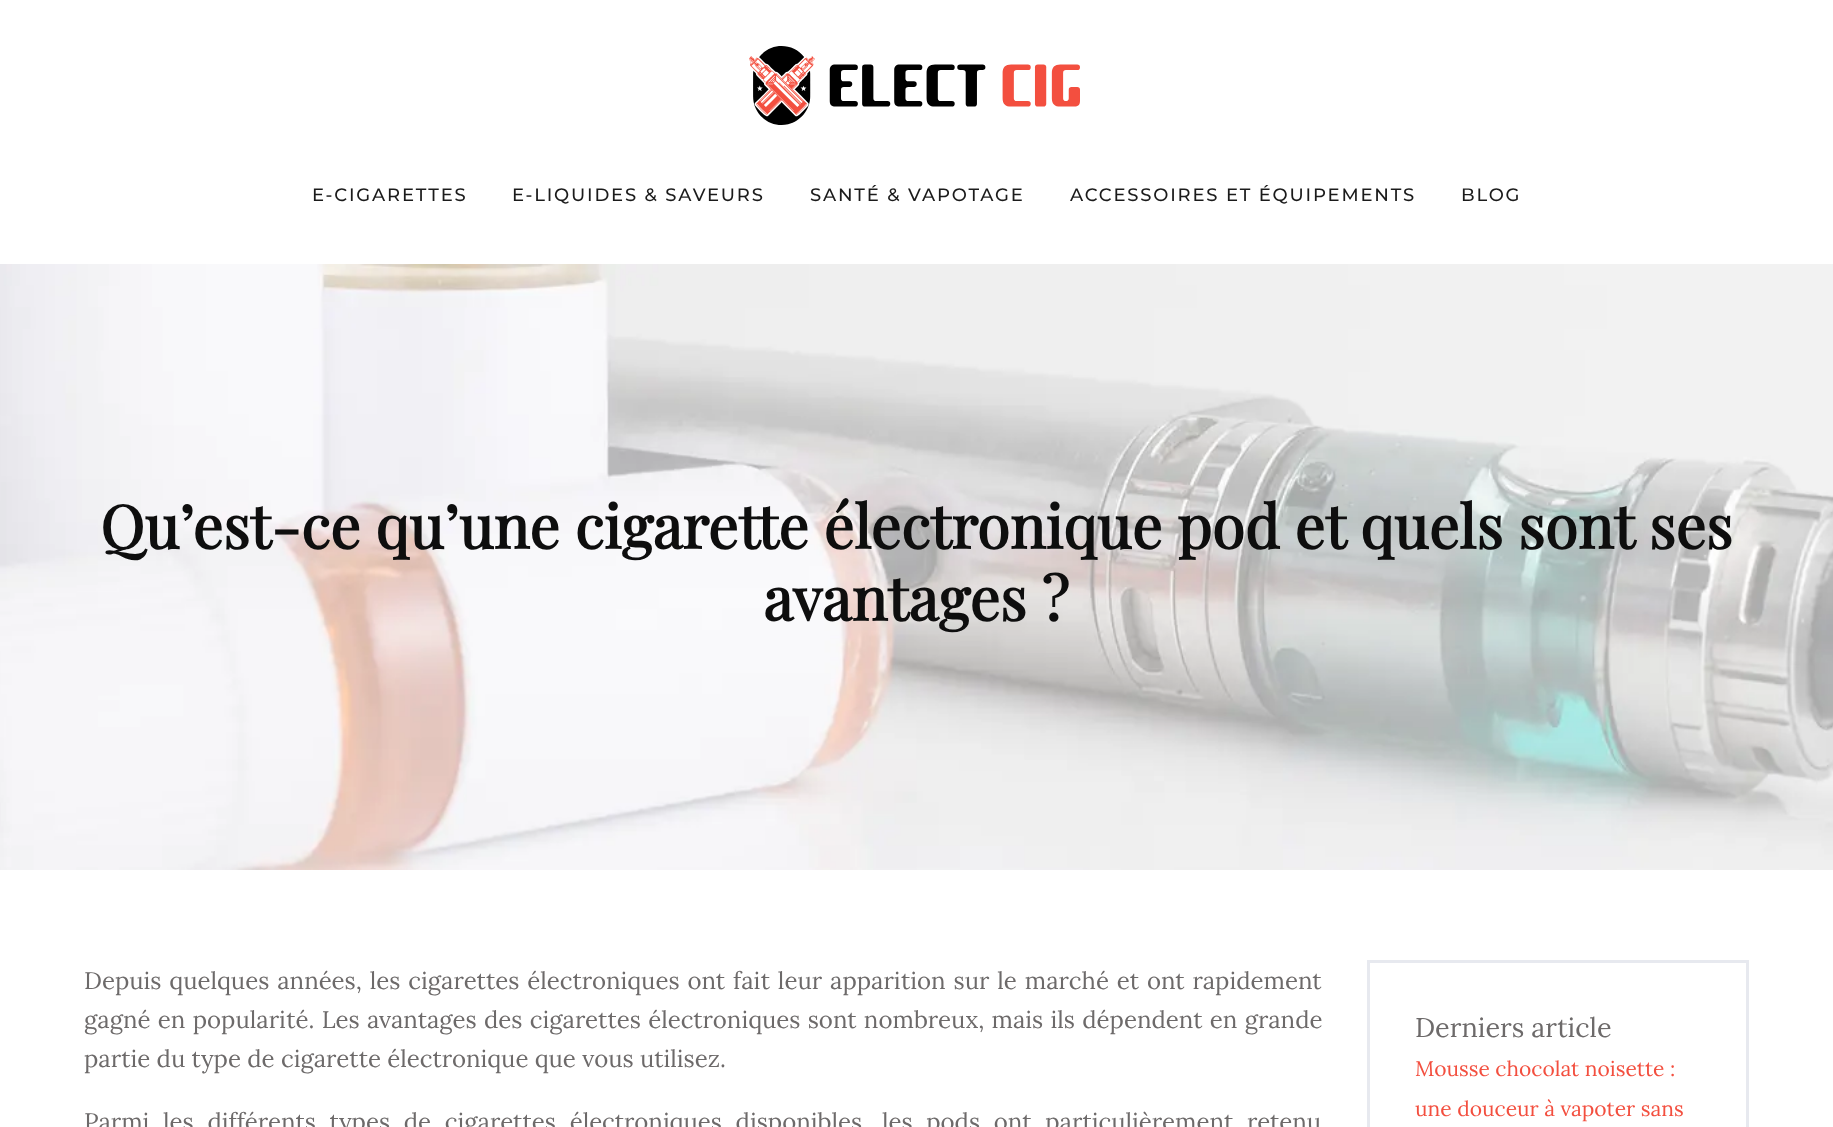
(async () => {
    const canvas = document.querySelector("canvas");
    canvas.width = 1833;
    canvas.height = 1127;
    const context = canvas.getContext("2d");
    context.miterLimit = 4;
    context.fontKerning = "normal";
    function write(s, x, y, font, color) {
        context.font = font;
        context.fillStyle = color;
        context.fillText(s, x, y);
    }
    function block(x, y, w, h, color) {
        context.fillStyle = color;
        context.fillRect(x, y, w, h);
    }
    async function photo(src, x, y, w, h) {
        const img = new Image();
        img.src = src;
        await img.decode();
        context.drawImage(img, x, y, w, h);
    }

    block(0, 0, 1833, 1127, "rgb(255, 255, 255)");
    await photo("media/1.png", 749, 46, 331, 79);
    context.letterSpacing = "1.8px";
    write("E-CIGARETTES", 312, 201, "100 18px Montserrat", "rgb(27, 27, 27)");
    write("E-LIQUIDES & SAVEURS", 512, 201, "100 18px Montserrat", "rgb(27, 27, 27)");
    write("SANTÉ & VAPOTAGE", 810, 201, "100 18px Montserrat", "rgb(27, 27, 27)");
    write("ACCESSOIRES ET ÉQUIPEMENTS", 1070, 201, "100 18px Montserrat", "rgb(27, 27, 27)");
    write("BLOG", 1461, 201, "100 18px Montserrat", "rgb(27, 27, 27)");
    await photo("media/2.png", 0, 264, 1833, 606);
    context.letterSpacing = "0px";
    write("Qu’est-ce qu’une cigarette électronique pod et quels sont ses", 100, 549, "bold 60px Playfair Display", "rgb(14, 14, 14)");
    write("avantages ?", 763, 621, "bold 60px Playfair Display", "rgb(14, 14, 14)");
    context.wordSpacing = "1.6px";
    write("Depuis quelques années, les cigarettes électroniques ont fait leur apparition sur le marché et ont rapidement", 84, 989, "24px Lora", "rgb(109, 106, 106)");
    context.wordSpacing = "1px";
    write("gagné en popularité. Les avantages des cigarettes électroniques sont nombreux, mais ils dépendent en grande", 84, 1028, "24px Lora", "rgb(109, 106, 106)");
    context.wordSpacing = "0px";
    write("partie du type de cigarette électronique que vous utilisez.", 84, 1067, "24px Lora", "rgb(109, 106, 106)");
    context.wordSpacing = "7.4px";
    write("Parmi les différents types de cigarettes électroniques disponibles, les pods ont particulièrement retenu", 84, 1130, "24px Lora", "rgb(109, 106, 106)");
    context.strokeStyle = "rgb(231, 233, 239)";
    context.lineWidth = 3;
    context.strokeRect(1368.5, 961.5, 379, 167);
    context.wordSpacing = "0px";
    write("Derniers article", 1415, 1037, "27px Lora", "rgb(109, 106, 106)");
    write("Mousse chocolat noisette :", 1415, 1076, "21px Lora", "rgb(243, 79, 63)");
    write("une douceur à vapoter sans", 1415, 1116, "21px Lora", "rgb(243, 79, 63)");
})();
